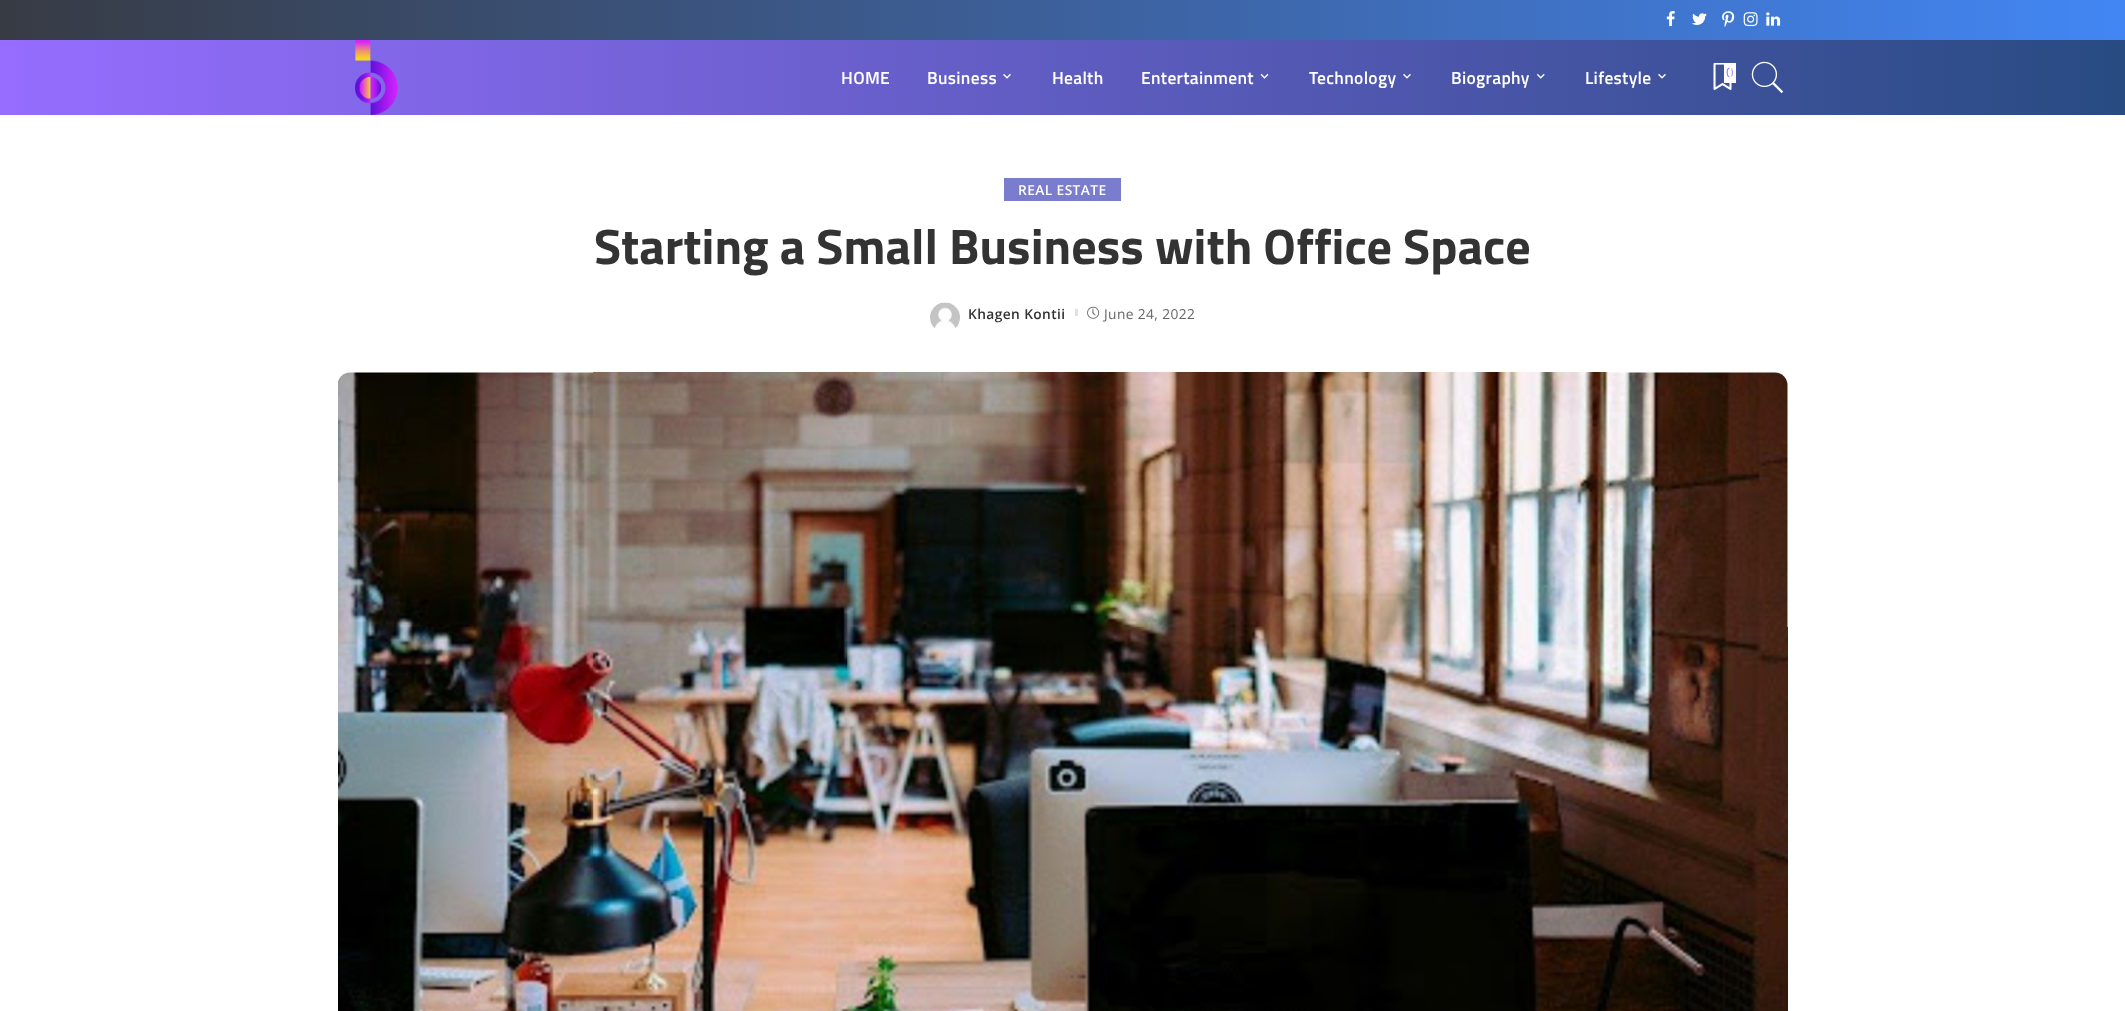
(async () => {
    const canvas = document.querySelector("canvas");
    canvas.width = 2125;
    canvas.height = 1011;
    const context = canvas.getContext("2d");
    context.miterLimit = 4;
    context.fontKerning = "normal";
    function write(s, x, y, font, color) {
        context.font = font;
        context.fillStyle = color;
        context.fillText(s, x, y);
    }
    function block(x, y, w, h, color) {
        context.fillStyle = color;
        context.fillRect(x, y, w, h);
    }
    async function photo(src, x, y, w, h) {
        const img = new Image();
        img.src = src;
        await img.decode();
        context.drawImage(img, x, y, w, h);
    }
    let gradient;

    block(0, 0, 2125, 1011, "rgb(255, 255, 255)");
    gradient = context.createLinearGradient(0, 20, 2125, 20);
    gradient.addColorStop(0, "rgb(55, 59, 68)");
    gradient.addColorStop(1, "rgb(66, 134, 244)");
    context.fillStyle = gradient;
    context.fillRect(0, 0, 2125, 40);
    await photo("media/1.png", 1666, 11, 9, 16);
    await photo("media/2.png", 1692, 13, 15, 12);
    await photo("media/3.png", 1722, 11, 13, 16);
    await photo("media/4.png", 1743, 12, 15, 15);
    await photo("media/5.png", 1766, 12, 15, 14);
    gradient = context.createLinearGradient(0, 78, 2125, 77);
    gradient.addColorStop(0, "rgb(150, 109, 255)");
    gradient.addColorStop(1, "rgb(40, 75, 130)");
    context.fillStyle = gradient;
    context.fillRect(0, 40, 2125, 75);
    await photo("media/6.png", 355, 40, 43, 75);
    context.letterSpacing = "0.3px";
    write("HOME", 841, 84, "600 17.5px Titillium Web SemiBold", "rgb(255, 255, 255)");
    write("Business", 927, 84, "600 17.5px Titillium Web SemiBold", "rgb(255, 255, 255)");
    await photo("media/7.png", 1003, 74, 8, 5);
    write("Health", 1052, 84, "600 17.5px Titillium Web SemiBold", "rgb(255, 255, 255)");
    write("Entertainment", 1141, 84, "600 17.5px Titillium Web SemiBold", "rgb(255, 255, 255)");
    await photo("media/8.png", 1260, 73, 9, 6);
    write("Technology", 1309, 84, "600 17.5px Titillium Web SemiBold", "rgb(255, 255, 255)");
    await photo("media/9.png", 1403, 73, 8, 6);
    write("Biography", 1451, 84, "600 17.5px Titillium Web SemiBold", "rgb(255, 255, 255)");
    await photo("media/10.png", 1536, 73, 9, 6);
    write("Lifestyle", 1585, 84, "600 17.5px Titillium Web SemiBold", "rgb(255, 255, 255)");
    await photo("media/11.png", 1658, 73, 8, 6);
    block(1724, 63, 12, 20, "rgb(255, 255, 255)");
    context.letterSpacing = "0px";
    write("0", 1726, 77, "13px Open Sans", "rgb(150, 109, 255)");
    await photo("media/12.png", 1713, 63, 19, 27);
    await photo("media/13.png", 1751, 61, 33, 33);
    block(1004, 178, 117, 23, "rgb(122, 125, 206)");
    context.letterSpacing = "0.4px";
    write("REAL ESTATE", 1018, 195, "600 13.75px Open Sans", "rgb(255, 255, 255)");
    context.letterSpacing = "0px";
    write("Starting a Small Business with Office Space", 594, 264, "bold 50px Titillium Web", "rgb(51, 51, 51)");
    await photo("media/14.png", 930, 302, 30, 27);
    context.letterSpacing = "0.4px";
    write("Khagen Kontii", 968, 319, "600 13.75px Open Sans", "rgb(51, 51, 51)");
    block(1075, 309, 3, 7, "rgb(224, 224, 224)");
    await photo("media/15.png", 1087, 306, 13, 13);
    write("June 24, 2022", 1104, 319, "13.75px Open Sans", "rgb(102, 102, 102)");
    await photo("media/16.png", 338, 372, 1450, 639);
})();
